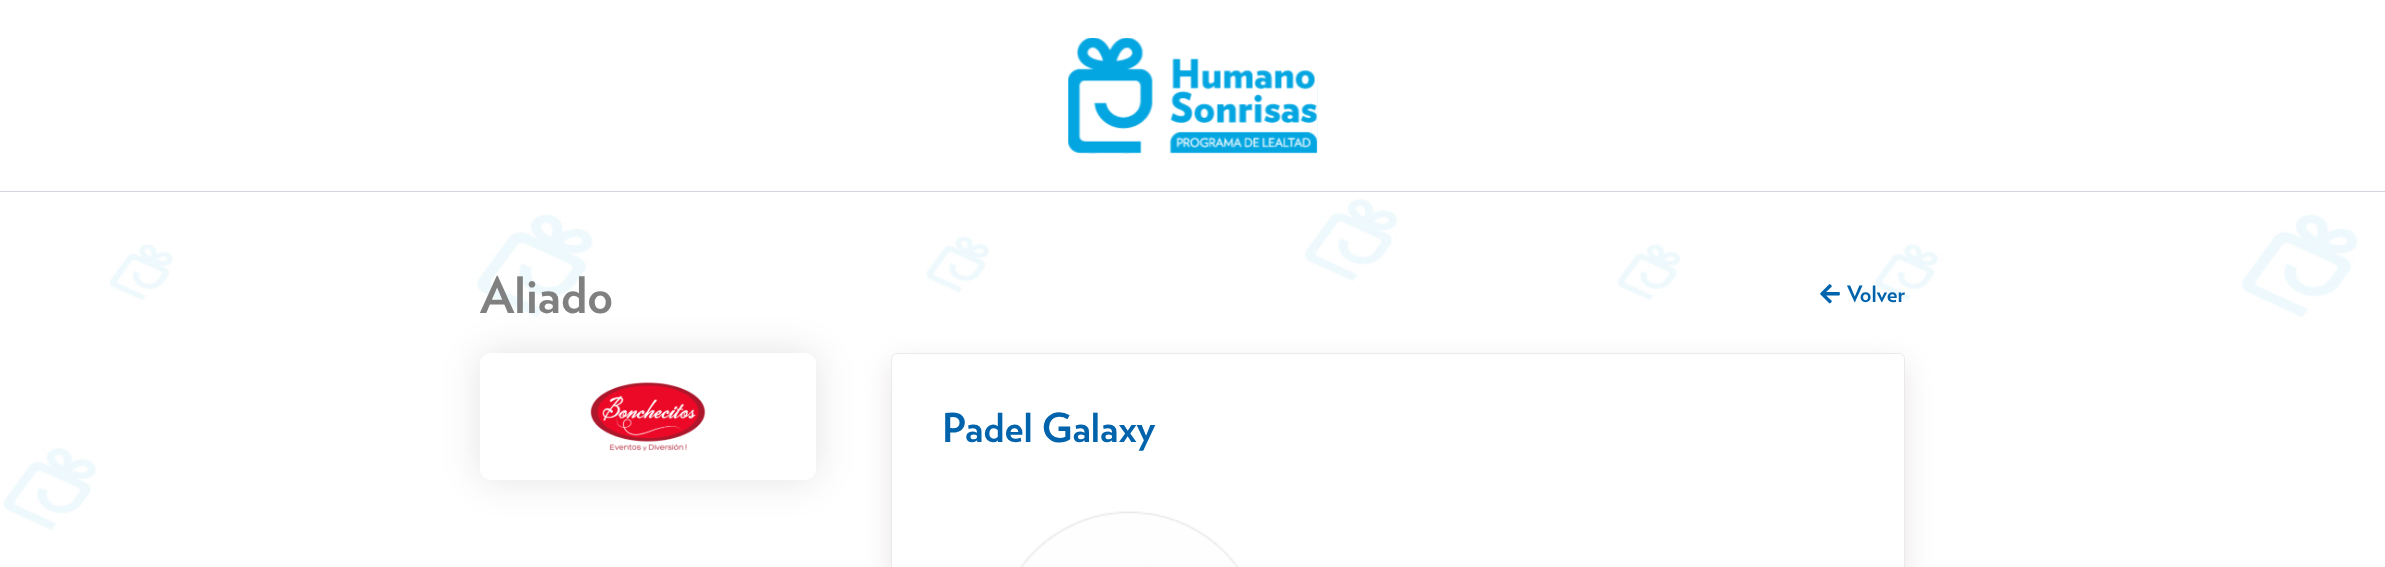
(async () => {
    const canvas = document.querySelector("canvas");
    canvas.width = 2385;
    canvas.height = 567;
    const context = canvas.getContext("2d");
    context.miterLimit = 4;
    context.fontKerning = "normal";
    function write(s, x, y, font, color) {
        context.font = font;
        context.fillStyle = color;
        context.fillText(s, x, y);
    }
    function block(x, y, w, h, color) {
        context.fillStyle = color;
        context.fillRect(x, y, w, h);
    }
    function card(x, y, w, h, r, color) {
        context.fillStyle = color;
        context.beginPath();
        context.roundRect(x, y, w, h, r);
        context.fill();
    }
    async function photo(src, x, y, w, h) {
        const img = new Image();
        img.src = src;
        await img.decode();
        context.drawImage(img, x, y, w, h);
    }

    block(0, 0, 2385, 567, "rgb(255, 255, 255)");
    block(0, 191, 2385, 1, "rgb(209, 213, 219)");
    await photo("media/1.png", 1068, 38, 250, 116);
    await photo("media/2.png", 3, 198, 2355, 369);
    write("Aliado", 480, 313, "bold 50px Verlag", "rgb(128, 128, 128)");
    await photo("media/3.png", 1820, 284, 20, 20);
    write("Volver", 1847, 302, "bold 22.5px Verlag", "rgb(0, 99, 171)");
    context.fillStyle = "rgba(0, 0, 0, 0.11)";
    context.filter = "blur(19px)";
    context.beginPath();
    context.roundRect(480, 353, 336, 127, 11);
    context.fill();
    context.filter = "none";
    card(480, 353, 336, 127, 11, "rgb(255, 255, 255)");
    await photo("media/4.png", 590, 382, 116, 69);
    context.fillStyle = "rgba(211, 202, 202, 0.5)";
    context.filter = "blur(14.5px)";
    context.beginPath();
    context.roundRect(891, 363, 1014, 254, 6);
    context.fill();
    context.filter = "none";
    context.fillStyle = "rgb(255, 255, 255)";
    context.beginPath();
    context.roundRect(891.5, 353.5, 1013, 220, 5.5);
    context.fill();
    context.strokeStyle = "rgb(232, 234, 237)";
    context.stroke();
    write("Padel Galaxy", 942, 442, "bold 40px Verlag", "rgb(0, 99, 171)");
    await photo("media/5.png", 1020, 511, 219, 56);
})();
